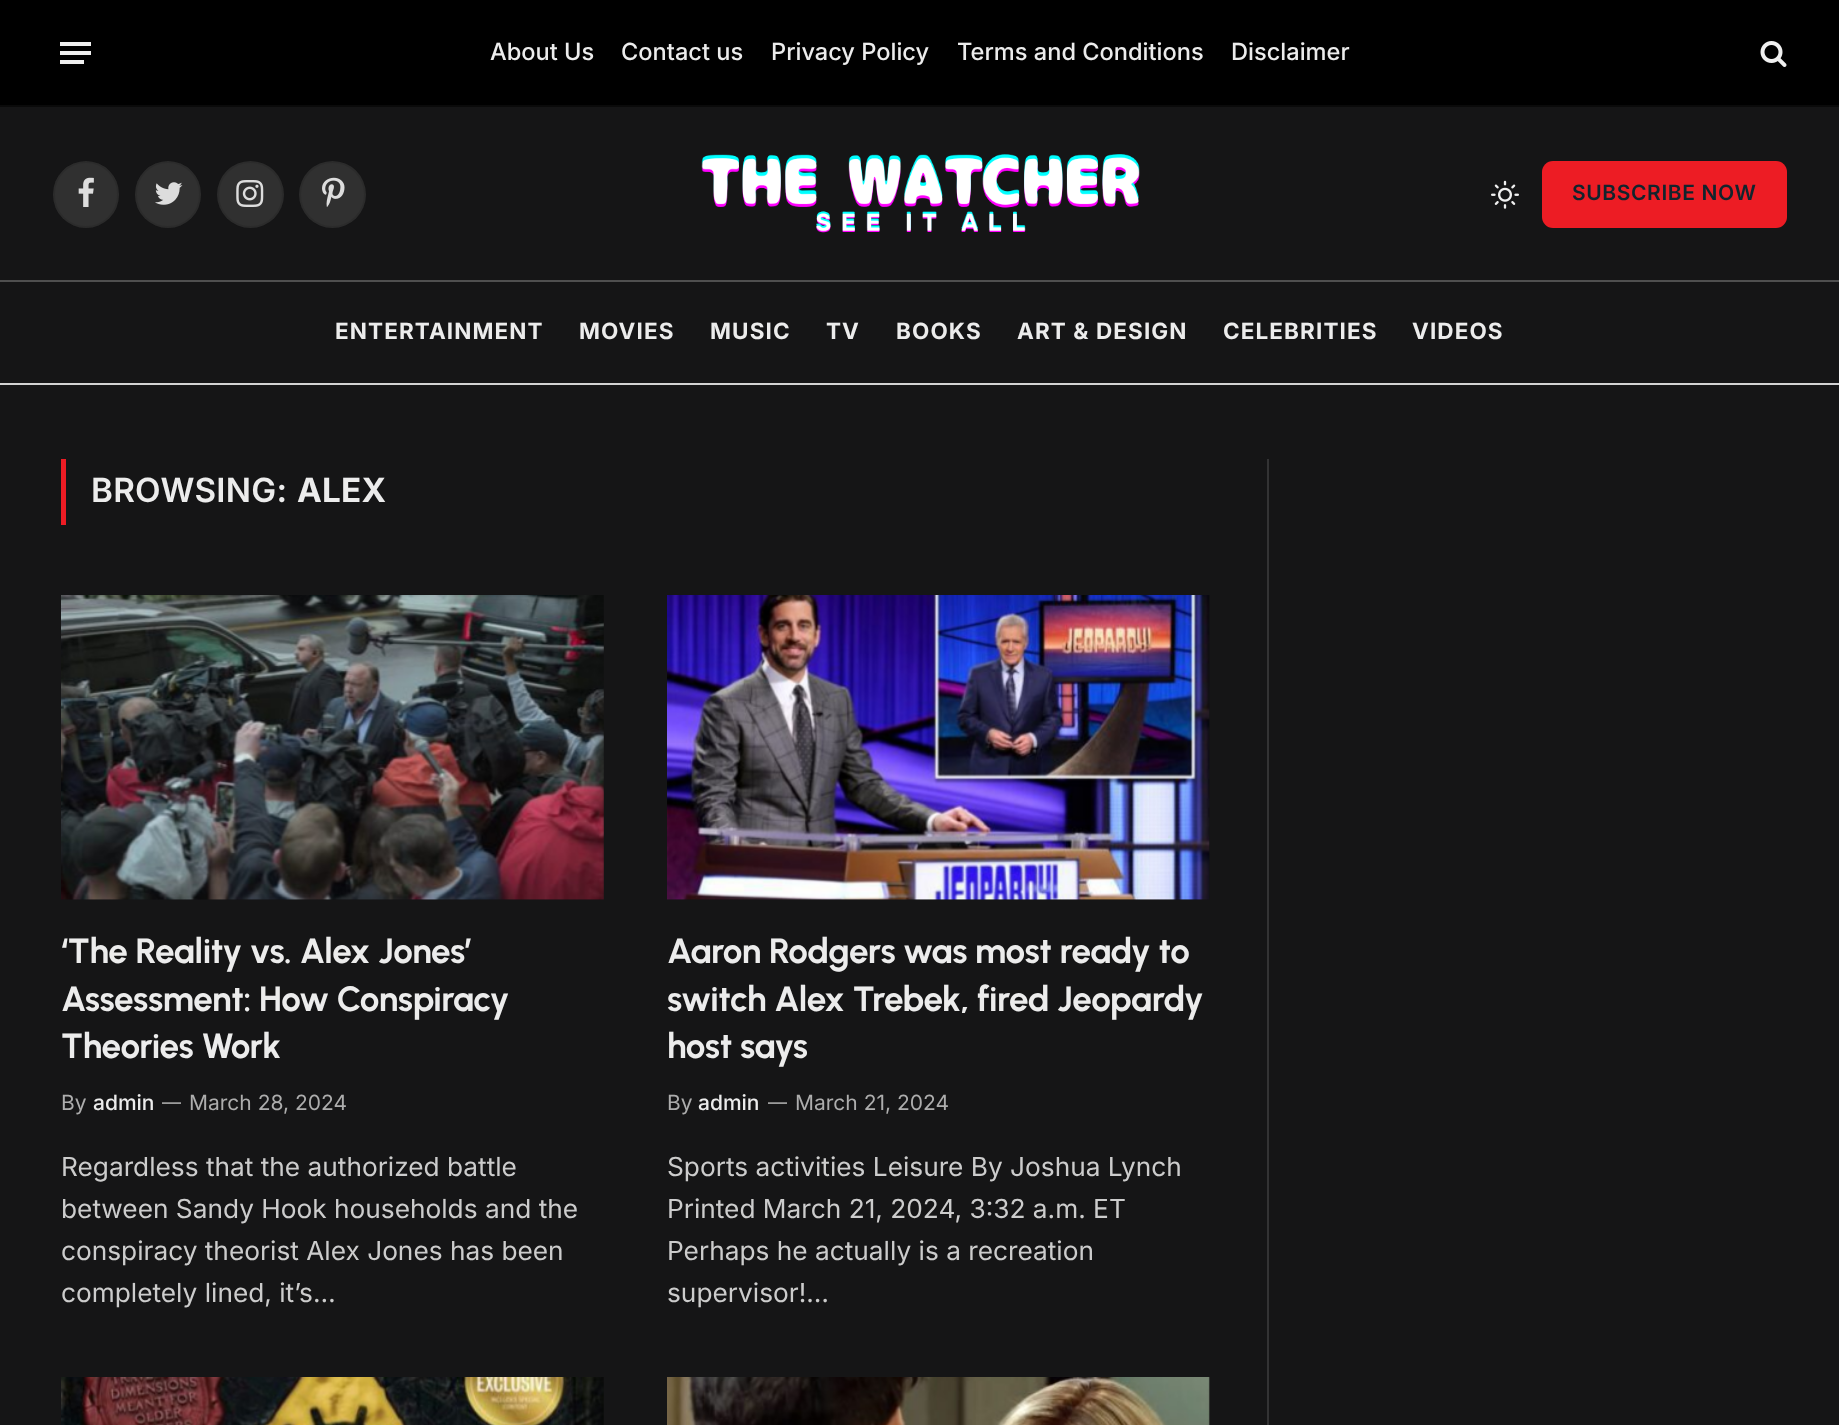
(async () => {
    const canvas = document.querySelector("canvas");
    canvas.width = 1839;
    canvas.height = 1425;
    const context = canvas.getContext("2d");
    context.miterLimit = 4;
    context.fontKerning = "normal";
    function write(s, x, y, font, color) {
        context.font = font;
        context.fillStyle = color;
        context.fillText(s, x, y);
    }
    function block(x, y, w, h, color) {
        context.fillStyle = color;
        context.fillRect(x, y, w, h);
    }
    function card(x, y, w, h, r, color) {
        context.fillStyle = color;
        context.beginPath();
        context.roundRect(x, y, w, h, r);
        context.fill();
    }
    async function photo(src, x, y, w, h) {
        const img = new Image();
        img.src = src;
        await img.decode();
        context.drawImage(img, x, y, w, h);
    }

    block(0, 0, 1839, 1425, "rgb(21, 21, 22)");
    block(0, 0, 1839, 105, "rgb(0, 0, 0)");
    block(60, 60, 24, 4, "rgb(240, 240, 240)");
    block(60, 42, 31, 4, "rgb(240, 240, 240)");
    block(60, 51, 31, 4, "rgb(240, 240, 240)");
    write("About Us", 490, 60, "500 23.6px Inter", "rgb(236, 236, 236)");
    write("Contact us", 621, 60, "500 23.6px Inter", "rgb(236, 236, 236)");
    write("Privacy Policy", 771, 60, "500 23.6px Inter", "rgb(236, 236, 236)");
    write("Terms and Conditions", 957, 60, "500 23.6px Inter", "rgb(236, 236, 236)");
    write("Disclaimer", 1231, 60, "500 23.6px Inter", "rgb(236, 236, 236)");
    await photo("media/1.png", 1760, 41, 27, 26);
    block(0, 105, 1839, 2, "rgb(10, 10, 10)");
    card(53, 161, 66, 67, 33, "rgb(48, 48, 48)");
    context.beginPath();
    context.roundRect(54, 162, 64, 65, 32);
    context.strokeStyle = "rgba(0, 0, 0, 0.09)";
    context.lineWidth = 2;
    context.stroke();
    await photo("media/2.png", 78, 177, 16, 30);
    card(135, 161, 66, 67, 33, "rgb(48, 48, 48)");
    context.beginPath();
    context.roundRect(136, 162, 64, 65, 32);
    context.stroke();
    await photo("media/3.png", 155, 182, 28, 23);
    context.beginPath();
    context.arc(250.5, 194.5, 33.5, 0, Math.PI * 2);
    context.fill();
    context.beginPath();
    context.arc(250.5, 194.5, 32.5, 0, Math.PI * 2);
    context.stroke();
    await photo("media/4.png", 236, 180, 28, 27);
    context.beginPath();
    context.arc(332.5, 194.5, 33.5, 0, Math.PI * 2);
    context.fill();
    context.beginPath();
    context.arc(332.5, 194.5, 32.5, 0, Math.PI * 2);
    context.stroke();
    await photo("media/5.png", 322, 177, 23, 30);
    await photo("media/6.png", 701, 154, 439, 79);
    await photo("media/7.png", 1491, 180, 28, 29);
    card(1542, 161, 245, 67, 11, "rgb(237, 28, 36)");
    context.letterSpacing = "0.6px";
    write("SUBSCRIBE NOW", 1572, 200, "600 21px Inter", "rgb(17, 36, 45)");
    block(0, 280, 1839, 2, "rgb(79, 79, 79)");
    block(0, 383, 1839, 2, "rgb(211, 211, 211)");
    context.letterSpacing = "1.1px";
    write("ENTERTAINMENT", 335, 339, "bold 22.5px Inter", "rgb(236, 236, 236)");
    write("MOVIES", 579, 339, "bold 22.5px Inter", "rgb(236, 236, 236)");
    write("MUSIC", 710, 339, "bold 22.5px Inter", "rgb(236, 236, 236)");
    write("TV", 826, 339, "bold 22.5px Inter", "rgb(236, 236, 236)");
    write("BOOKS", 896, 339, "bold 22.5px Inter", "rgb(236, 236, 236)");
    write("ART & DESIGN", 1017, 339, "bold 22.5px Inter", "rgb(236, 236, 236)");
    write("CELEBRITIES", 1223, 339, "bold 22.5px Inter", "rgb(236, 236, 236)");
    write("VIDEOS", 1412, 339, "bold 22.5px Inter", "rgb(236, 236, 236)");
    block(61, 459, 5, 66, "rgb(237, 28, 36)");
    context.letterSpacing = "0.25px";
    write("BROWSING:", 91, 502, "600 33.25px Inter", "rgb(236, 236, 236)");
    write("ALEX", 297, 502, "bold 33.25px Inter", "rgb(236, 236, 236)");
    await photo("media/8.png", 61, 595, 543, 305);
    context.letterSpacing = "-0.35px";
    write("‘The Reality vs. Alex Jones’", 61, 963, "bold 35px Urbanist", "rgb(236, 236, 236)");
    write("Assessment: How Conspiracy", 61, 1011, "bold 35px Urbanist", "rgb(236, 236, 236)");
    write("Theories Work", 61, 1058, "bold 35px Urbanist", "rgb(236, 236, 236)");
    context.letterSpacing = "0px";
    write("By", 61, 1110, "21px Inter", "rgb(173, 173, 173)");
    write("admin", 93, 1110, "500 21px Inter", "rgb(236, 236, 236)");
    write("—", 162, 1109, "19px Inter", "rgb(173, 173, 173)");
    write("March 28, 2024", 189, 1110, "21px Inter", "rgb(173, 173, 173)");
    write("Regardless that the authorized battle", 61, 1176, "26.25px Inter", "rgb(204, 204, 204)");
    write("between Sandy Hook households and the", 61, 1218, "26.25px Inter", "rgb(204, 204, 204)");
    write("conspiracy theorist Alex Jones has been", 61, 1260, "26.25px Inter", "rgb(204, 204, 204)");
    write("completely lined, it’s…", 61, 1302, "26.25px Inter", "rgb(204, 204, 204)");
    await photo("media/9.png", 667, 595, 543, 305);
    context.letterSpacing = "-0.35px";
    write("Aaron Rodgers was most ready to", 667, 963, "bold 35px Urbanist", "rgb(236, 236, 236)");
    write("switch Alex Trebek, fired Jeopardy", 667, 1011, "bold 35px Urbanist", "rgb(236, 236, 236)");
    write("host says", 667, 1058, "bold 35px Urbanist", "rgb(236, 236, 236)");
    context.letterSpacing = "0px";
    write("By", 667, 1110, "21px Inter", "rgb(173, 173, 173)");
    write("admin", 698, 1110, "500 21px Inter", "rgb(236, 236, 236)");
    write("—", 768, 1109, "19px Inter", "rgb(173, 173, 173)");
    write("March 21, 2024", 795, 1110, "21px Inter", "rgb(173, 173, 173)");
    write("Sports activities Leisure By Joshua Lynch", 667, 1176, "26.25px Inter", "rgb(204, 204, 204)");
    write("Printed March 21, 2024, 3:32 a.m. ET", 667, 1218, "26.25px Inter", "rgb(204, 204, 204)");
    write("Perhaps he actually is a recreation", 667, 1260, "26.25px Inter", "rgb(204, 204, 204)");
    write("supervisor!…", 667, 1302, "26.25px Inter", "rgb(204, 204, 204)");
    await photo("media/10.png", 61, 1377, 543, 48);
    await photo("media/11.png", 667, 1377, 543, 48);
    block(1267, 459, 2, 966, "rgb(51, 51, 52)");
})();
